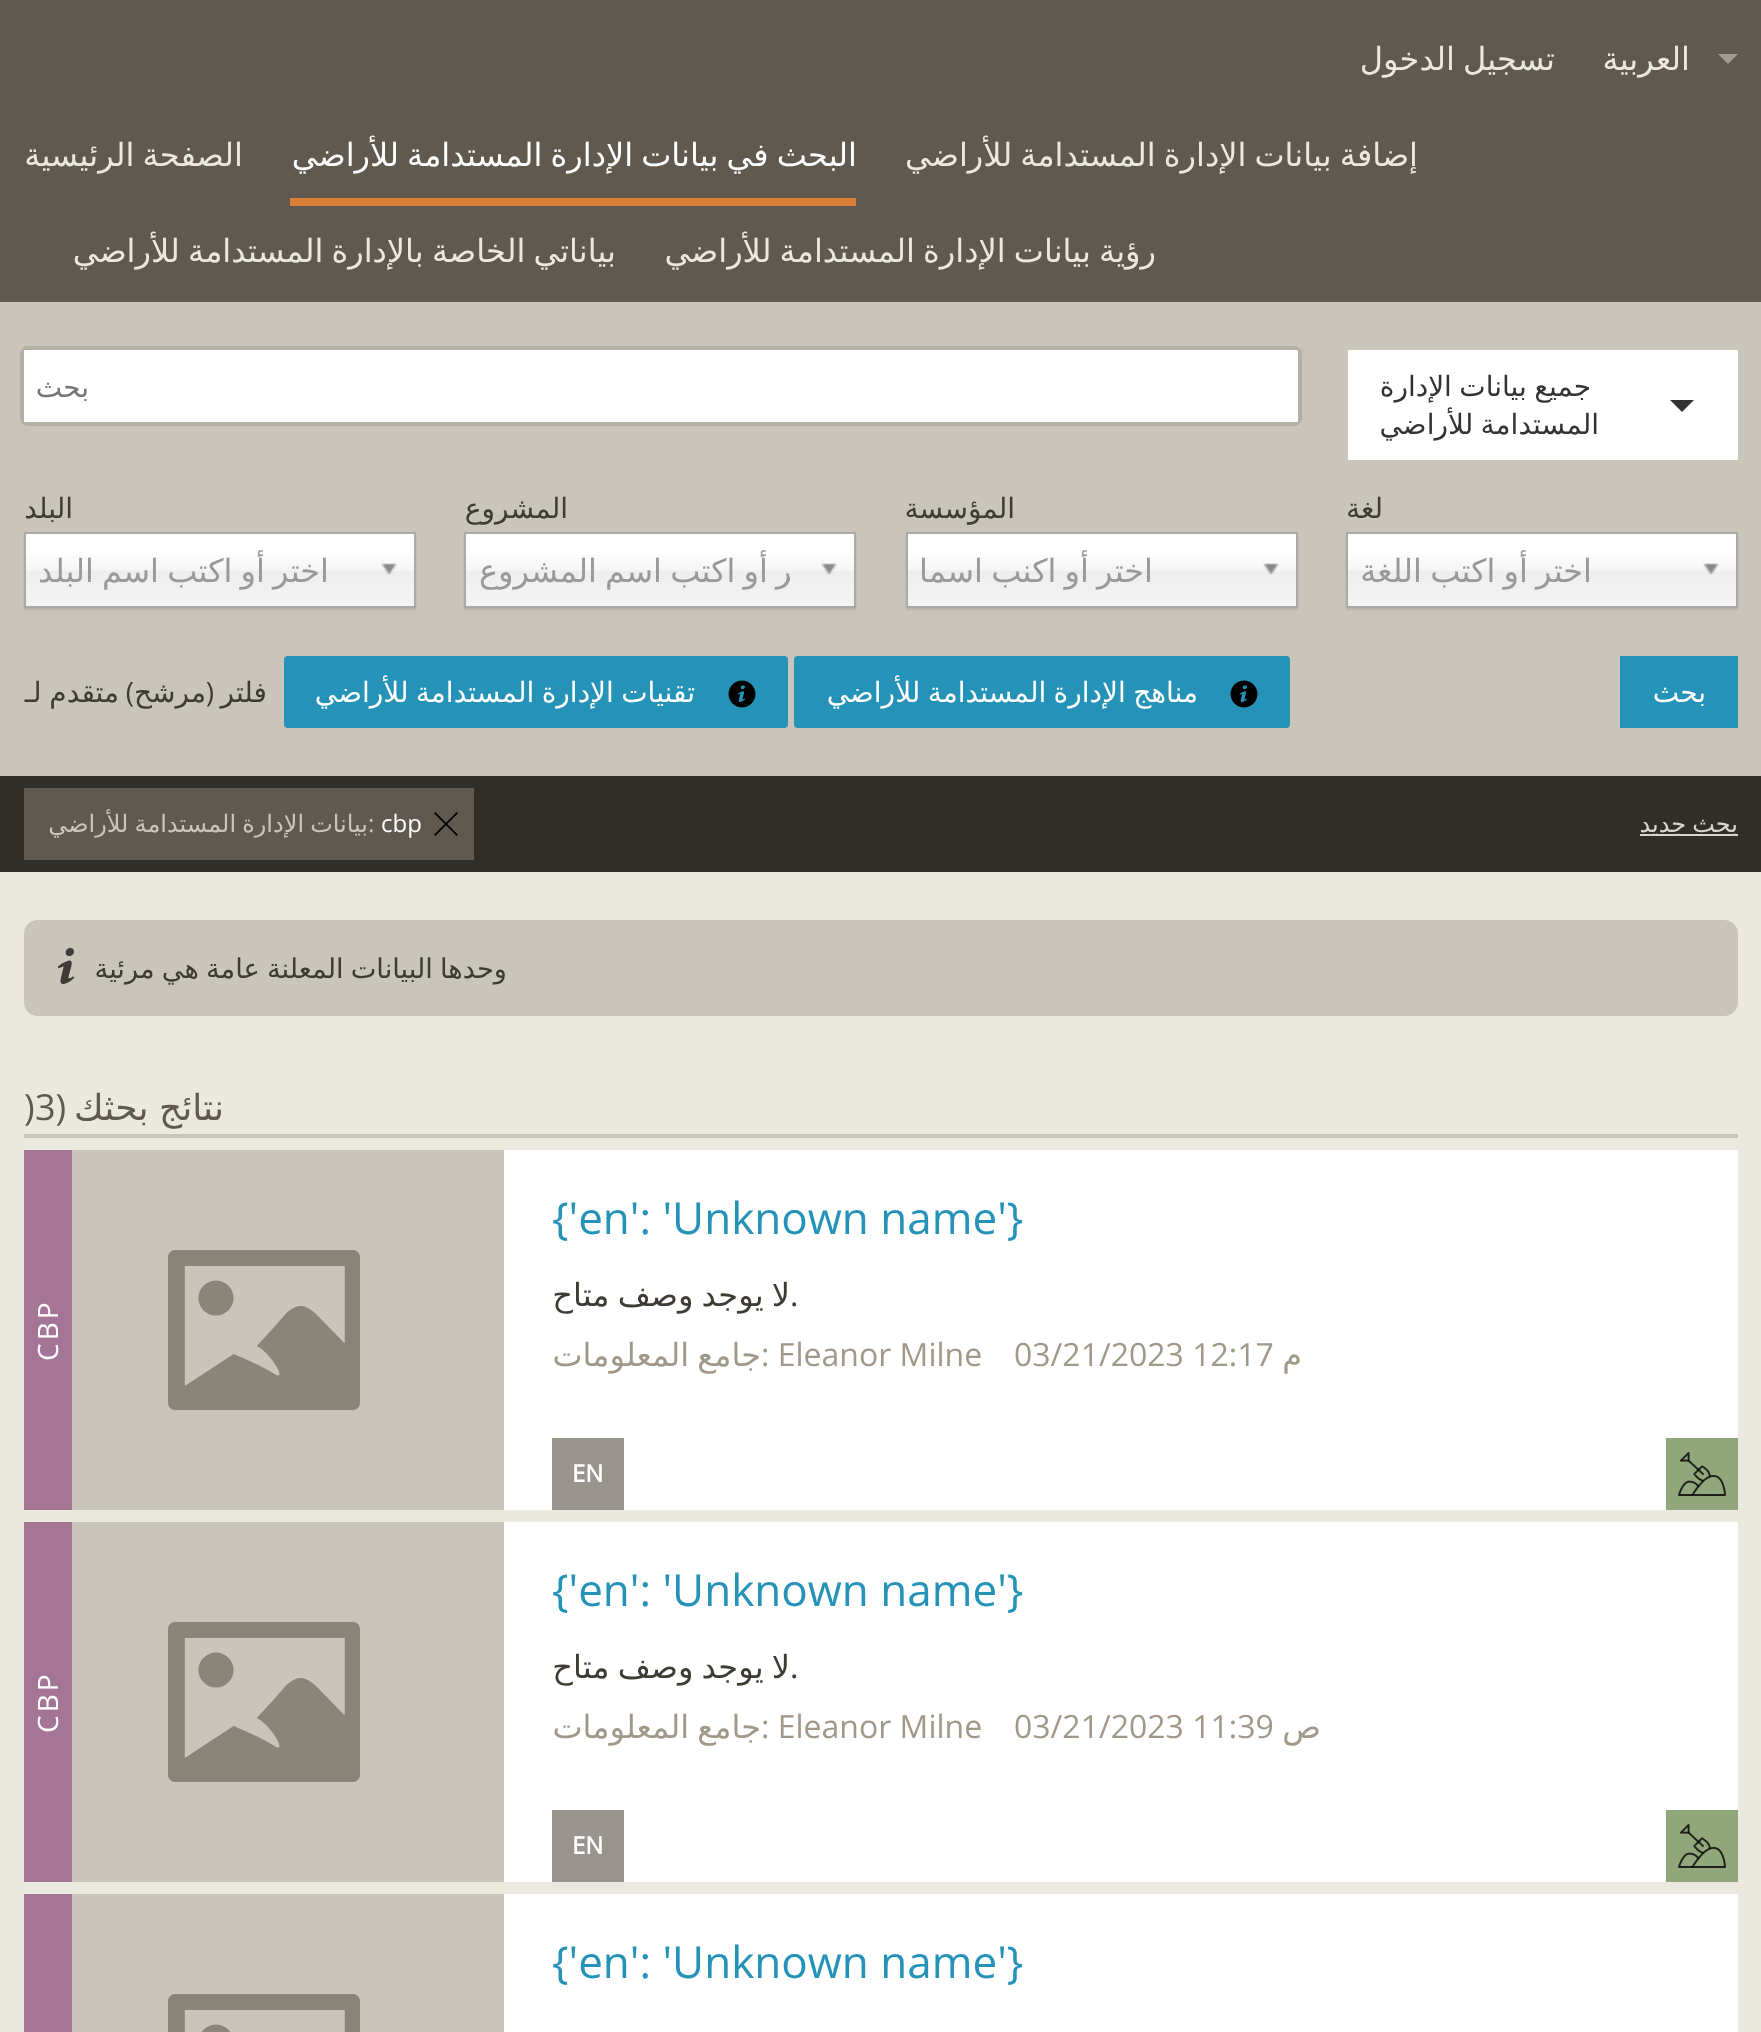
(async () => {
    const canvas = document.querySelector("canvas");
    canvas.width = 1761;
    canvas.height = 2032;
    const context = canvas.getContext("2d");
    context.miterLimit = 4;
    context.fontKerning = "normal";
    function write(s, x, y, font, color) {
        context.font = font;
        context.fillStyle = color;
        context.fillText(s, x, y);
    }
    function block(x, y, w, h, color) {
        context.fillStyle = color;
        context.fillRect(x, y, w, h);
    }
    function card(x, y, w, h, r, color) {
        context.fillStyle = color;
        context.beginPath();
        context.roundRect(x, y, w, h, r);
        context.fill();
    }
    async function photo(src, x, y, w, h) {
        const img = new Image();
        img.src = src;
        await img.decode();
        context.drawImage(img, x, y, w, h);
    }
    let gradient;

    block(0, 0, 1761, 2032, "rgb(234, 232, 223)");
    block(0, 0, 1761, 302, "rgb(95, 89, 79)");
    context.fillStyle = "rgb(159, 155, 149)";
    context.beginPath();
    context.moveTo(1718, 54);
    context.lineTo(1738, 54);
    context.lineTo(1728, 64);
    context.closePath();
    context.fill();
    context.direction = "rtl";
    write("العربية", 1690, 70, "32px DejaVu Sans", "rgb(234, 232, 223)");
    context.wordSpacing = "-2px";
    write("تسجيل الدخول", 1555, 70, "32px DejaVu Sans", "rgb(234, 232, 223)");
    write("إضافة بيانات الإدارة المستدامة للأراضي", 1418, 166, "32px DejaVu Sans", "rgb(234, 232, 223)");
    block(290, 198, 566, 8, "rgb(220, 125, 53)");
    write("البحث في بيانات الإدارة المستدامة للأراضي", 857, 166, "32px DejaVu Sans", "rgb(255, 255, 255)");
    write("الصفحة الرئيسية", 243, 166, "32px DejaVu Sans", "rgb(234, 232, 223)");
    write("رؤية بيانات الإدارة المستدامة للأراضي", 1156, 262, "32px DejaVu Sans", "rgb(234, 232, 223)");
    write("بياناتي الخاصة بالإدارة المستدامة للأراضي", 616, 262, "32px DejaVu Sans", "rgb(234, 232, 223)");
    block(0, 302, 1761, 474, "rgb(202, 197, 186)");
    block(1348, 350, 390, 110, "rgb(255, 255, 255)");
    context.wordSpacing = "-1.5px";
    write("جميع بيانات الإدارة", 1591, 396, "28px DejaVu Sans", "rgb(51, 51, 51)");
    context.beginPath();
    context.moveTo(1670, 400);
    context.lineTo(1694, 400);
    context.lineTo(1682, 412);
    context.closePath();
    context.fill();
    write("المستدامة للأراضي", 1599, 434, "28px DejaVu Sans", "rgb(51, 51, 51)");
    context.beginPath();
    context.roundRect(22, 348, 1278, 76, 6);
    context.strokeStyle = "rgb(181, 176, 166)";
    context.lineWidth = 4;
    context.stroke();
    block(24, 350, 1274, 72, "rgb(255, 255, 255)");
    context.wordSpacing = "0px";
    write("بحث", 89, 397, "28px DejaVu Sans", "rgb(117, 117, 117)");
    write("لغة", 1383, 518, "28px DejaVu Sans", "rgb(62, 59, 52)");
    context.fillStyle = "rgba(0, 0, 0, 0.1)";
    context.filter = "blur(1px)";
    context.beginPath();
    context.rect(1346, 534, 392, 76);
    context.fill();
    context.filter = "none";
    gradient = context.createLinearGradient(1542, 534, 1542, 606);
    gradient.addColorStop(0.2, "rgb(255, 255, 255)");
    gradient.addColorStop(0.5, "rgb(246, 246, 246)");
    gradient.addColorStop(0.52, "rgb(238, 238, 238)");
    gradient.addColorStop(1, "rgb(244, 244, 244)");
    context.fillStyle = gradient;
    context.fillRect(1348, 534, 388, 72);
    context.strokeStyle = "rgb(170, 170, 170)";
    context.lineWidth = 2;
    context.strokeRect(1347, 533, 390, 74);
    await photo("media/1.png", 1703, 563, 16, 12);
    context.wordSpacing = "-2px";
    write("اختر أو اكتب اللغة", 1592, 582, "32px DejaVu Sans", "rgb(153, 153, 153)");
    context.wordSpacing = "0px";
    write("المؤسسة", 1015, 518, "28px DejaVu Sans", "rgb(62, 59, 52)");
    context.fillStyle = "rgba(0, 0, 0, 0.1)";
    context.filter = "blur(1px)";
    context.beginPath();
    context.rect(906, 534, 392, 76);
    context.fill();
    context.filter = "none";
    gradient = context.createLinearGradient(1102, 534, 1102, 606);
    gradient.addColorStop(0.2, "rgb(255, 255, 255)");
    gradient.addColorStop(0.5, "rgb(246, 246, 246)");
    gradient.addColorStop(0.52, "rgb(238, 238, 238)");
    gradient.addColorStop(1, "rgb(244, 244, 244)");
    context.fillStyle = gradient;
    context.fillRect(908, 534, 388, 72);
    context.strokeRect(907, 533, 390, 74);
    await photo("media/1.png", 1263, 563, 16, 12);
    context.wordSpacing = "-2px";
    write("اختر أو اكنب اسما", 1153, 582, "32px DejaVu Sans", "rgb(153, 153, 153)");
    context.wordSpacing = "0px";
    write("المشروع", 568, 518, "28px DejaVu Sans", "rgb(62, 59, 52)");
    context.fillStyle = "rgba(0, 0, 0, 0.1)";
    context.filter = "blur(1px)";
    context.beginPath();
    context.rect(464, 534, 392, 76);
    context.fill();
    context.filter = "none";
    gradient = context.createLinearGradient(660, 534, 660, 606);
    gradient.addColorStop(0.2, "rgb(255, 255, 255)");
    gradient.addColorStop(0.5, "rgb(246, 246, 246)");
    gradient.addColorStop(0.52, "rgb(238, 238, 238)");
    gradient.addColorStop(1, "rgb(244, 244, 244)");
    context.fillStyle = gradient;
    context.fillRect(466, 534, 388, 72);
    context.strokeRect(465, 533, 390, 74);
    await photo("media/1.png", 821, 563, 16, 12);
    context.save();
    context.beginPath();
    context.rect(478, 546, 312, 48);
    context.clip();
    context.wordSpacing = "-2px";
    write("اختر أو اكتب اسم المشروع", 832, 582, "32px DejaVu Sans", "rgb(153, 153, 153)");
    context.restore();
    write("البلد", 73, 518, "28px DejaVu Sans", "rgb(62, 59, 52)");
    context.fillStyle = "rgba(0, 0, 0, 0.1)";
    context.filter = "blur(1px)";
    context.beginPath();
    context.rect(24, 534, 392, 76);
    context.fill();
    context.filter = "none";
    gradient = context.createLinearGradient(220, 534, 220, 606);
    gradient.addColorStop(0.2, "rgb(255, 255, 255)");
    gradient.addColorStop(0.5, "rgb(246, 246, 246)");
    gradient.addColorStop(0.52, "rgb(238, 238, 238)");
    gradient.addColorStop(1, "rgb(244, 244, 244)");
    context.fillStyle = gradient;
    context.fillRect(26, 534, 388, 72);
    context.strokeRect(25, 533, 390, 74);
    await photo("media/1.png", 381, 563, 16, 12);
    context.wordSpacing = "-2px";
    write("اختر أو اكتب اسم البلد", 329, 582, "32px DejaVu Sans", "rgb(153, 153, 153)");
    block(1620, 656, 118, 72, "rgb(37, 146, 183)");
    context.wordSpacing = "0px";
    write("بحث", 1706, 702, "28px DejaVu Sans", "rgb(255, 255, 255)");
    card(794, 656, 496, 72, 4, "rgb(37, 146, 183)");
    await photo("media/2.png", 1230, 680, 28, 28);
    context.wordSpacing = "-1.5px";
    write("مناهج الإدارة المستدامة للأراضي", 1198, 702, "28px DejaVu Sans", "rgb(255, 255, 255)");
    card(284, 656, 504, 72, 4, "rgb(37, 146, 183)");
    await photo("media/2.png", 728, 680, 28, 28);
    write("تقنيات الإدارة المستدامة للأراضي", 695, 702, "28px DejaVu Sans", "rgb(255, 255, 255)");
    context.wordSpacing = "0px";
    write("فلتر", 267, 702, "28px DejaVu Sans", "rgb(62, 59, 52)");
    write("(", 214, 702, "28px Open Sans", "rgb(62, 59, 52)");
    write("مرشح", 206, 702, "28px DejaVu Sans", "rgb(62, 59, 52)");
    write(")", 134, 702, "28px Open Sans", "rgb(62, 59, 52)");
    context.wordSpacing = "-1px";
    write("متقدم لـ", 119, 702, "28px DejaVu Sans", "rgb(62, 59, 52)");
    block(0, 776, 1761, 96, "rgb(48, 46, 40)");
    block(1640, 834, 98, 2, "rgb(217, 214, 204)");
    context.wordSpacing = "-1.5px";
    write("بحث جديد", 1738, 832, "24px DejaVu Sans", "rgb(217, 214, 204)");
    block(24, 788, 450, 72, "rgb(95, 89, 79)");
    await photo("media/3.png", 434, 812, 24, 24);
    context.wordSpacing = "0px";
    context.direction = "ltr";
    write("cbp", 381, 832, "24px Open Sans", "rgb(255, 255, 255)");
    context.wordSpacing = "-1.5px";
    context.direction = "rtl";
    write("بيانات الإدارة المستدامة للأراضي", 368, 832, "24px DejaVu Sans", "rgb(202, 197, 186)");
    context.wordSpacing = "0px";
    context.direction = "ltr";
    write(":", 368, 832, "24px Open Sans", "rgb(202, 197, 186)");
    card(24, 920, 1714, 96, 14, "rgb(202, 197, 186)");
    context.wordSpacing = "-1.5px";
    context.direction = "rtl";
    write("وحدها البيانات المعلنة عامة هي مرئية", 507, 978, "27.25px DejaVu Sans", "rgb(62, 59, 52)");
    await photo("media/4.png", 57, 948, 18, 36);
    block(24, 1134, 1714, 4, "rgb(202, 197, 186)");
    context.wordSpacing = "-1px";
    write("نتائج بحثك", 224, 1120, "36px DejaVu Sans", "rgb(95, 89, 79)");
    context.wordSpacing = "0px";
    write("(", 66, 1120, "36px Open Sans", "rgb(95, 89, 79)");
    context.direction = "ltr";
    write("3", 35, 1120, "36px Open Sans", "rgb(95, 89, 79)");
    write(")", 24, 1120, "36px Open Sans", "rgb(95, 89, 79)");
    block(504, 1150, 1234, 360, "rgb(255, 255, 255)");
    write("{'en': 'Unknown name'}", 552, 1234, "44px Open Sans", "rgb(37, 146, 183)");
    context.wordSpacing = "-2px";
    context.direction = "rtl";
    write("لا يوجد وصف متاح", 790, 1306, "32px DejaVu Sans", "rgb(62, 59, 52)");
    context.wordSpacing = "0px";
    context.direction = "ltr";
    write(".", 790, 1306, "32px Open Sans", "rgb(62, 59, 52)");
    context.direction = "rtl";
    write("م", 1302, 1366, "32px DejaVu Sans", "rgb(160, 152, 137)");
    context.direction = "ltr";
    write("03/21/2023 12:17", 1014, 1366, "32px Open Sans", "rgb(160, 152, 137)");
    write(": Eleanor Milne", 761, 1366, "32px Open Sans", "rgb(160, 152, 137)");
    context.wordSpacing = "-2px";
    context.direction = "rtl";
    write("جامع المعلومات", 761, 1366, "32px DejaVu Sans", "rgb(160, 152, 137)");
    block(1666, 1438, 72, 72, "rgb(146, 166, 123)");
    await photo("media/5.png", 1678, 1452, 48, 44);
    block(552, 1438, 72, 72, "rgb(153, 149, 142)");
    context.wordSpacing = "0px";
    context.direction = "ltr";
    write("EN", 572, 1482, "bold 24px Open Sans", "rgb(255, 255, 255)");
    block(72, 1150, 432, 360, "rgb(202, 197, 186)");
    await photo("media/6.png", 168, 1250, 192, 160);
    block(24, 1150, 48, 360, "rgb(164, 117, 149)");
    context.letterSpacing = "3px";
    context.font = "28px Open Sans";
    context.fillStyle = "rgb(255, 255, 255)";
    context.save();
    context.translate(58, 1361);
    context.rotate(-90 * Math.PI / 180);
    context.fillText("CBP", 0, 0);
    context.restore();
    block(504, 1522, 1234, 360, "rgb(255, 255, 255)");
    context.letterSpacing = "0px";
    write("{'en': 'Unknown name'}", 552, 1606, "44px Open Sans", "rgb(37, 146, 183)");
    context.wordSpacing = "-2px";
    context.direction = "rtl";
    write("لا يوجد وصف متاح", 790, 1678, "32px DejaVu Sans", "rgb(62, 59, 52)");
    context.wordSpacing = "0px";
    context.direction = "ltr";
    write(".", 790, 1678, "32px Open Sans", "rgb(62, 59, 52)");
    context.direction = "rtl";
    write("ص", 1321, 1738, "32px DejaVu Sans", "rgb(160, 152, 137)");
    context.direction = "ltr";
    write("03/21/2023 11:39", 1014, 1738, "32px Open Sans", "rgb(160, 152, 137)");
    write(": Eleanor Milne", 761, 1738, "32px Open Sans", "rgb(160, 152, 137)");
    context.wordSpacing = "-2px";
    context.direction = "rtl";
    write("جامع المعلومات", 761, 1738, "32px DejaVu Sans", "rgb(160, 152, 137)");
    block(1666, 1810, 72, 72, "rgb(146, 166, 123)");
    await photo("media/5.png", 1678, 1824, 48, 44);
    block(552, 1810, 72, 72, "rgb(153, 149, 142)");
    context.wordSpacing = "0px";
    context.direction = "ltr";
    write("EN", 572, 1854, "bold 24px Open Sans", "rgb(255, 255, 255)");
    block(72, 1522, 432, 360, "rgb(202, 197, 186)");
    await photo("media/7.png", 168, 1622, 192, 160);
    block(24, 1522, 48, 360, "rgb(164, 117, 149)");
    context.letterSpacing = "3px";
    context.font = "28px Open Sans";
    context.fillStyle = "rgb(255, 255, 255)";
    context.save();
    context.translate(58, 1733);
    context.rotate(-90 * Math.PI / 180);
    context.fillText("CBP", 0, 0);
    context.restore();
    block(504, 1894, 1234, 138, "rgb(255, 255, 255)");
    context.letterSpacing = "0px";
    write("{'en': 'Unknown name'}", 552, 1978, "44px Open Sans", "rgb(37, 146, 183)");
    block(72, 1894, 432, 138, "rgb(202, 197, 186)");
    await photo("media/8.png", 168, 1994, 192, 38);
    block(24, 1894, 48, 138, "rgb(164, 117, 149)");
})();
